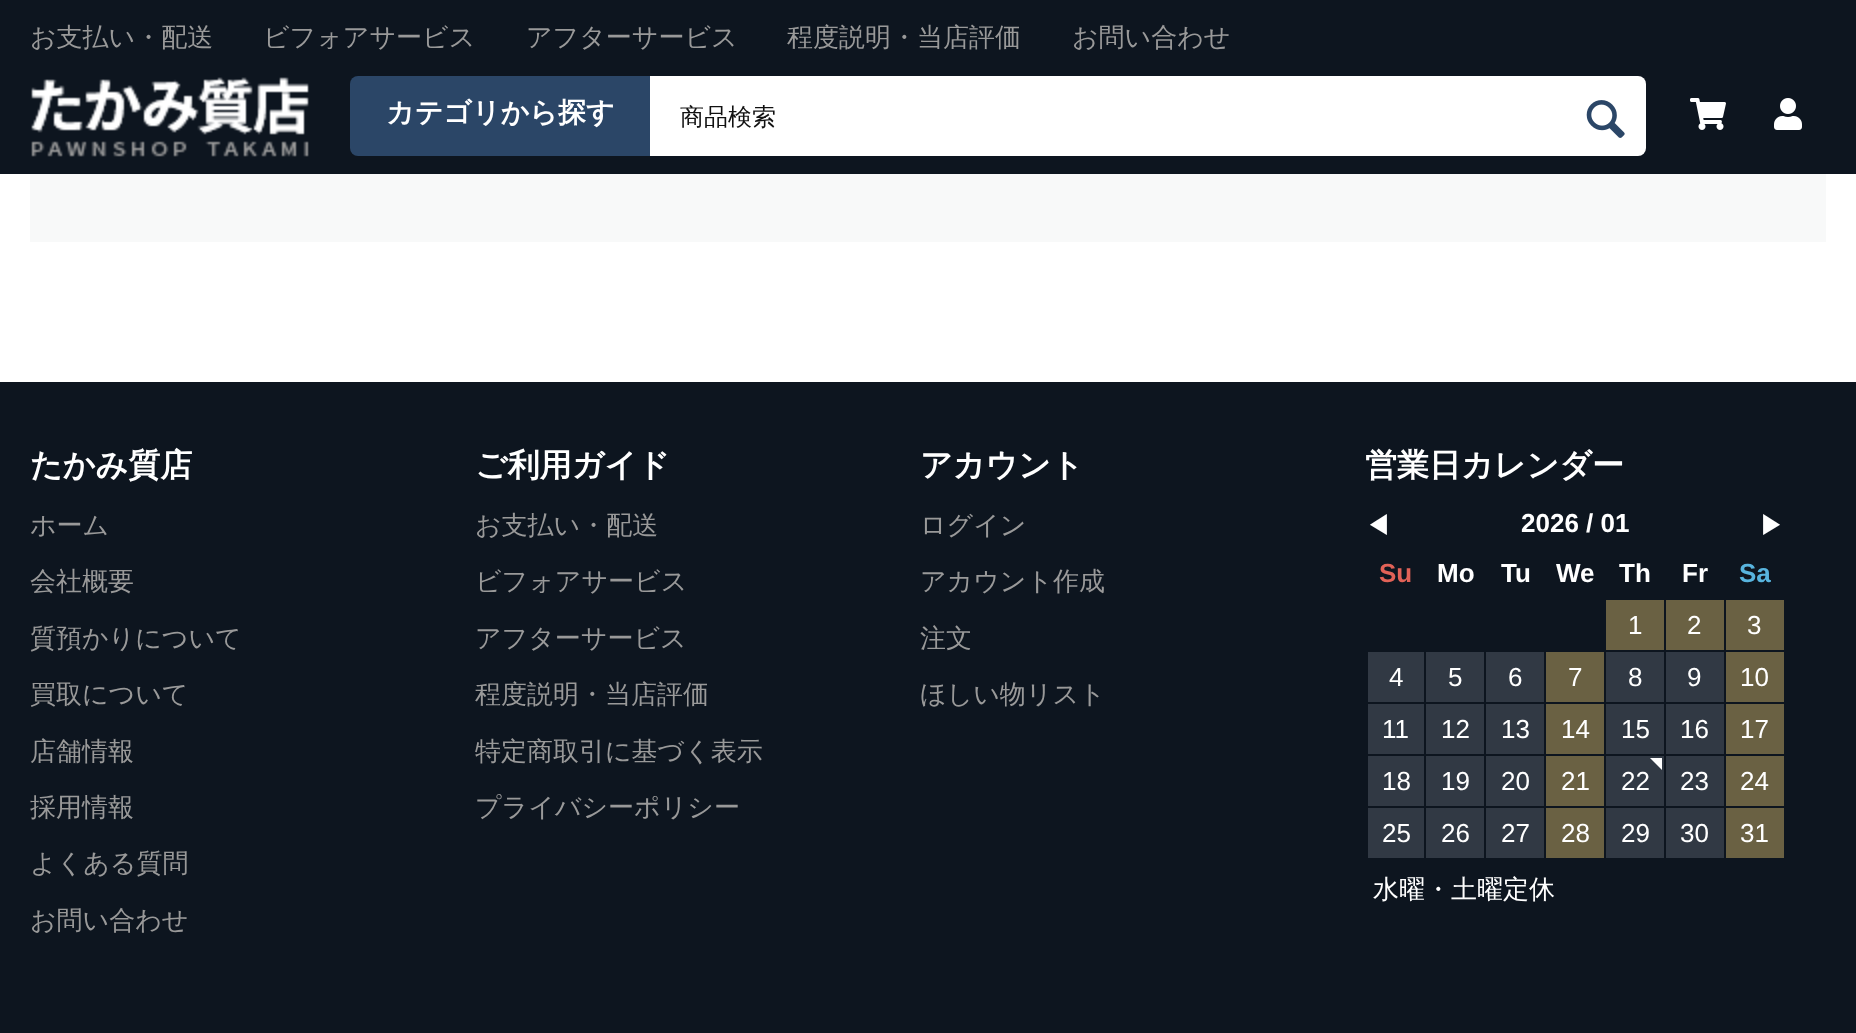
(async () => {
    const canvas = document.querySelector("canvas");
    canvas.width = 1856;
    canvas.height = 1033;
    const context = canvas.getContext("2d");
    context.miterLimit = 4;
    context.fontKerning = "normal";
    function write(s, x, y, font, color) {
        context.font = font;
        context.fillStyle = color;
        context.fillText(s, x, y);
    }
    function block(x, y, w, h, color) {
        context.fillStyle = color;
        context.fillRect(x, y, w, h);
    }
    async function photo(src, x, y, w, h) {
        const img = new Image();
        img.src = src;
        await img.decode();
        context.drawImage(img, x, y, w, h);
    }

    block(0, 0, 1856, 1033, "rgb(255, 255, 255)");
    block(0, 0, 1856, 174, "rgb(13, 21, 31)");
    write("お支払い・配送", 30, 46, "500 26px WenQuanYi Zen Hei", "rgb(153, 153, 153)");
    write("ビフォアサービス", 263, 46, "500 26px WenQuanYi Zen Hei", "rgb(153, 153, 153)");
    write("アフターサービス", 526, 46, "500 26px WenQuanYi Zen Hei", "rgb(153, 153, 153)");
    write("程度説明・当店評価", 787, 46, "500 26px WenQuanYi Zen Hei", "rgb(153, 153, 153)");
    write("お問い合わせ", 1072, 46, "500 26px WenQuanYi Zen Hei", "rgb(153, 153, 153)");
    await photo("media/1.png", 31, 77, 278, 80);
    await photo("media/2.png", 1690, 98, 36, 32);
    await photo("media/3.png", 1774, 98, 28, 32);
    context.fillStyle = "rgb(43, 70, 103)";
    context.beginPath();
    context.roundRect(350, 76, 300, 80, [8, 0, 0, 8]);
    context.fill();
    write("カテゴリから探す", 386, 122, "bold 28px WenQuanYi Zen Hei", "rgb(255, 255, 255)");
    block(650, 76, 926, 80, "rgb(255, 255, 255)");
    write("商品検索", 680, 125, "500 24px WenQuanYi Zen Hei", "rgb(17, 17, 17)");
    context.fillStyle = "rgb(255, 255, 255)";
    context.beginPath();
    context.roundRect(1576, 76, 70, 80, [0, 8, 8, 0]);
    context.fill();
    await photo("media/4.png", 1586, 100, 39, 38);
    block(30, 174, 1796, 68, "rgb(248, 249, 249)");
    block(0, 382, 1856, 651, "rgb(13, 21, 31)");
    write("たかみ質店", 30, 476, "bold 32px WenQuanYi Zen Hei", "rgb(255, 255, 255)");
    write("ホーム", 30, 534, "500 26px WenQuanYi Zen Hei", "rgb(153, 153, 153)");
    write("会社概要", 30, 590, "500 26px WenQuanYi Zen Hei", "rgb(153, 153, 153)");
    write("質預かりについて", 30, 647, "500 26px WenQuanYi Zen Hei", "rgb(153, 153, 153)");
    write("買取について", 30, 703, "500 26px WenQuanYi Zen Hei", "rgb(153, 153, 153)");
    write("店舗情報", 30, 760, "500 26px WenQuanYi Zen Hei", "rgb(153, 153, 153)");
    write("採用情報", 30, 816, "500 26px WenQuanYi Zen Hei", "rgb(153, 153, 153)");
    write("よくある質問", 30, 872, "500 26px WenQuanYi Zen Hei", "rgb(153, 153, 153)");
    write("お問い合わせ", 30, 929, "500 26px WenQuanYi Zen Hei", "rgb(153, 153, 153)");
    write("ご利用ガイド", 475, 476, "bold 32px WenQuanYi Zen Hei", "rgb(255, 255, 255)");
    write("お支払い・配送", 475, 534, "500 26px WenQuanYi Zen Hei", "rgb(153, 153, 153)");
    write("ビフォアサービス", 475, 590, "500 26px WenQuanYi Zen Hei", "rgb(153, 153, 153)");
    write("アフターサービス", 475, 647, "500 26px WenQuanYi Zen Hei", "rgb(153, 153, 153)");
    write("程度説明・当店評価", 475, 703, "500 26px WenQuanYi Zen Hei", "rgb(153, 153, 153)");
    write("特定商取引に基づく表示", 475, 760, "500 26px WenQuanYi Zen Hei", "rgb(153, 153, 153)");
    write("プライバシーポリシー", 475, 816, "500 26px WenQuanYi Zen Hei", "rgb(153, 153, 153)");
    write("アカウント", 920, 476, "bold 32px WenQuanYi Zen Hei", "rgb(255, 255, 255)");
    write("ログイン", 920, 534, "500 26px WenQuanYi Zen Hei", "rgb(153, 153, 153)");
    write("アカウント作成", 920, 590, "500 26px WenQuanYi Zen Hei", "rgb(153, 153, 153)");
    write("注文", 920, 647, "500 26px WenQuanYi Zen Hei", "rgb(153, 153, 153)");
    write("ほしい物リスト", 920, 703, "500 26px WenQuanYi Zen Hei", "rgb(153, 153, 153)");
    write("営業日カレンダー", 1365, 476, "bold 32px WenQuanYi Zen Hei", "rgb(255, 255, 255)");
    write("◀", 1365, 534, "500 26px WenQuanYi Zen Hei", "rgb(255, 255, 255)");
    write("▶", 1759, 534, "500 26px WenQuanYi Zen Hei", "rgb(255, 255, 255)");
    write("2026 / 01", 1521, 532, "bold 26px Liberation Sans", "rgb(255, 255, 255)");
    write("Su", 1379, 582, "bold 26px Liberation Sans", "rgb(226, 98, 87)");
    write("Mo", 1437, 582, "bold 26px Liberation Sans", "rgb(255, 255, 255)");
    write("Tu", 1501, 582, "bold 26px Liberation Sans", "rgb(255, 255, 255)");
    write("We", 1556, 582, "bold 26px Liberation Sans", "rgb(255, 255, 255)");
    write("Th", 1619, 582, "bold 26px Liberation Sans", "rgb(255, 255, 255)");
    write("Fr", 1682, 582, "bold 26px Liberation Sans", "rgb(255, 255, 255)");
    write("Sa", 1739, 582, "bold 26px Liberation Sans", "rgb(88, 180, 222)");
    block(1606, 600, 58, 50, "rgb(106, 97, 67)");
    write("1", 1628, 634, "26px Liberation Sans", "rgb(255, 255, 255)");
    block(1666, 600, 58, 50, "rgb(106, 97, 67)");
    write("2", 1687, 634, "26px Liberation Sans", "rgb(255, 255, 255)");
    block(1726, 600, 58, 50, "rgb(106, 97, 67)");
    write("3", 1747, 634, "26px Liberation Sans", "rgb(255, 255, 255)");
    block(1368, 652, 56, 50, "rgb(49, 57, 68)");
    write("4", 1389, 686, "26px Liberation Sans", "rgb(255, 255, 255)");
    block(1426, 652, 58, 50, "rgb(49, 57, 68)");
    write("5", 1448, 686, "26px Liberation Sans", "rgb(255, 255, 255)");
    block(1486, 652, 58, 50, "rgb(49, 57, 68)");
    write("6", 1508, 686, "26px Liberation Sans", "rgb(255, 255, 255)");
    block(1546, 652, 58, 50, "rgb(106, 97, 67)");
    write("7", 1568, 686, "26px Liberation Sans", "rgb(255, 255, 255)");
    block(1606, 652, 58, 50, "rgb(49, 57, 68)");
    write("8", 1628, 686, "26px Liberation Sans", "rgb(255, 255, 255)");
    block(1666, 652, 58, 50, "rgb(49, 57, 68)");
    write("9", 1687, 686, "26px Liberation Sans", "rgb(255, 255, 255)");
    block(1726, 652, 58, 50, "rgb(106, 97, 67)");
    write("10", 1740, 686, "26px Liberation Sans", "rgb(255, 255, 255)");
    block(1368, 704, 56, 50, "rgb(49, 57, 68)");
    write("11", 1382, 738, "26px Liberation Sans", "rgb(255, 255, 255)");
    block(1426, 704, 58, 50, "rgb(49, 57, 68)");
    write("12", 1441, 738, "26px Liberation Sans", "rgb(255, 255, 255)");
    block(1486, 704, 58, 50, "rgb(49, 57, 68)");
    write("13", 1501, 738, "26px Liberation Sans", "rgb(255, 255, 255)");
    block(1546, 704, 58, 50, "rgb(106, 97, 67)");
    write("14", 1561, 738, "26px Liberation Sans", "rgb(255, 255, 255)");
    block(1606, 704, 58, 50, "rgb(49, 57, 68)");
    write("15", 1621, 738, "26px Liberation Sans", "rgb(255, 255, 255)");
    block(1666, 704, 58, 50, "rgb(49, 57, 68)");
    write("16", 1680, 738, "26px Liberation Sans", "rgb(255, 255, 255)");
    block(1726, 704, 58, 50, "rgb(106, 97, 67)");
    write("17", 1740, 738, "26px Liberation Sans", "rgb(255, 255, 255)");
    block(1368, 756, 56, 50, "rgb(49, 57, 68)");
    write("18", 1382, 790, "26px Liberation Sans", "rgb(255, 255, 255)");
    block(1426, 756, 58, 50, "rgb(49, 57, 68)");
    write("19", 1441, 790, "26px Liberation Sans", "rgb(255, 255, 255)");
    block(1486, 756, 58, 50, "rgb(49, 57, 68)");
    write("20", 1501, 790, "26px Liberation Sans", "rgb(255, 255, 255)");
    block(1546, 756, 58, 50, "rgb(106, 97, 67)");
    write("21", 1561, 790, "26px Liberation Sans", "rgb(255, 255, 255)");
    block(1606, 756, 58, 50, "rgb(49, 57, 68)");
    context.fillStyle = "rgb(255, 255, 255)";
    context.beginPath();
    context.moveTo(1662, 758);
    context.lineTo(1662, 770);
    context.lineTo(1650, 758);
    context.closePath();
    context.fill();
    write("22", 1621, 790, "26px Liberation Sans", "rgb(255, 255, 255)");
    block(1666, 756, 58, 50, "rgb(49, 57, 68)");
    write("23", 1680, 790, "26px Liberation Sans", "rgb(255, 255, 255)");
    block(1726, 756, 58, 50, "rgb(106, 97, 67)");
    write("24", 1740, 790, "26px Liberation Sans", "rgb(255, 255, 255)");
    block(1368, 808, 56, 50, "rgb(49, 57, 68)");
    write("25", 1382, 842, "26px Liberation Sans", "rgb(255, 255, 255)");
    block(1426, 808, 58, 50, "rgb(49, 57, 68)");
    write("26", 1441, 842, "26px Liberation Sans", "rgb(255, 255, 255)");
    block(1486, 808, 58, 50, "rgb(49, 57, 68)");
    write("27", 1501, 842, "26px Liberation Sans", "rgb(255, 255, 255)");
    block(1546, 808, 58, 50, "rgb(106, 97, 67)");
    write("28", 1561, 842, "26px Liberation Sans", "rgb(255, 255, 255)");
    block(1606, 808, 58, 50, "rgb(49, 57, 68)");
    write("29", 1621, 842, "26px Liberation Sans", "rgb(255, 255, 255)");
    block(1666, 808, 58, 50, "rgb(49, 57, 68)");
    write("30", 1680, 842, "26px Liberation Sans", "rgb(255, 255, 255)");
    block(1726, 808, 58, 50, "rgb(106, 97, 67)");
    write("31", 1740, 842, "26px Liberation Sans", "rgb(255, 255, 255)");
    write("水曜・土曜定休", 1373, 898, "500 26px WenQuanYi Zen Hei", "rgb(255, 255, 255)");
})();
